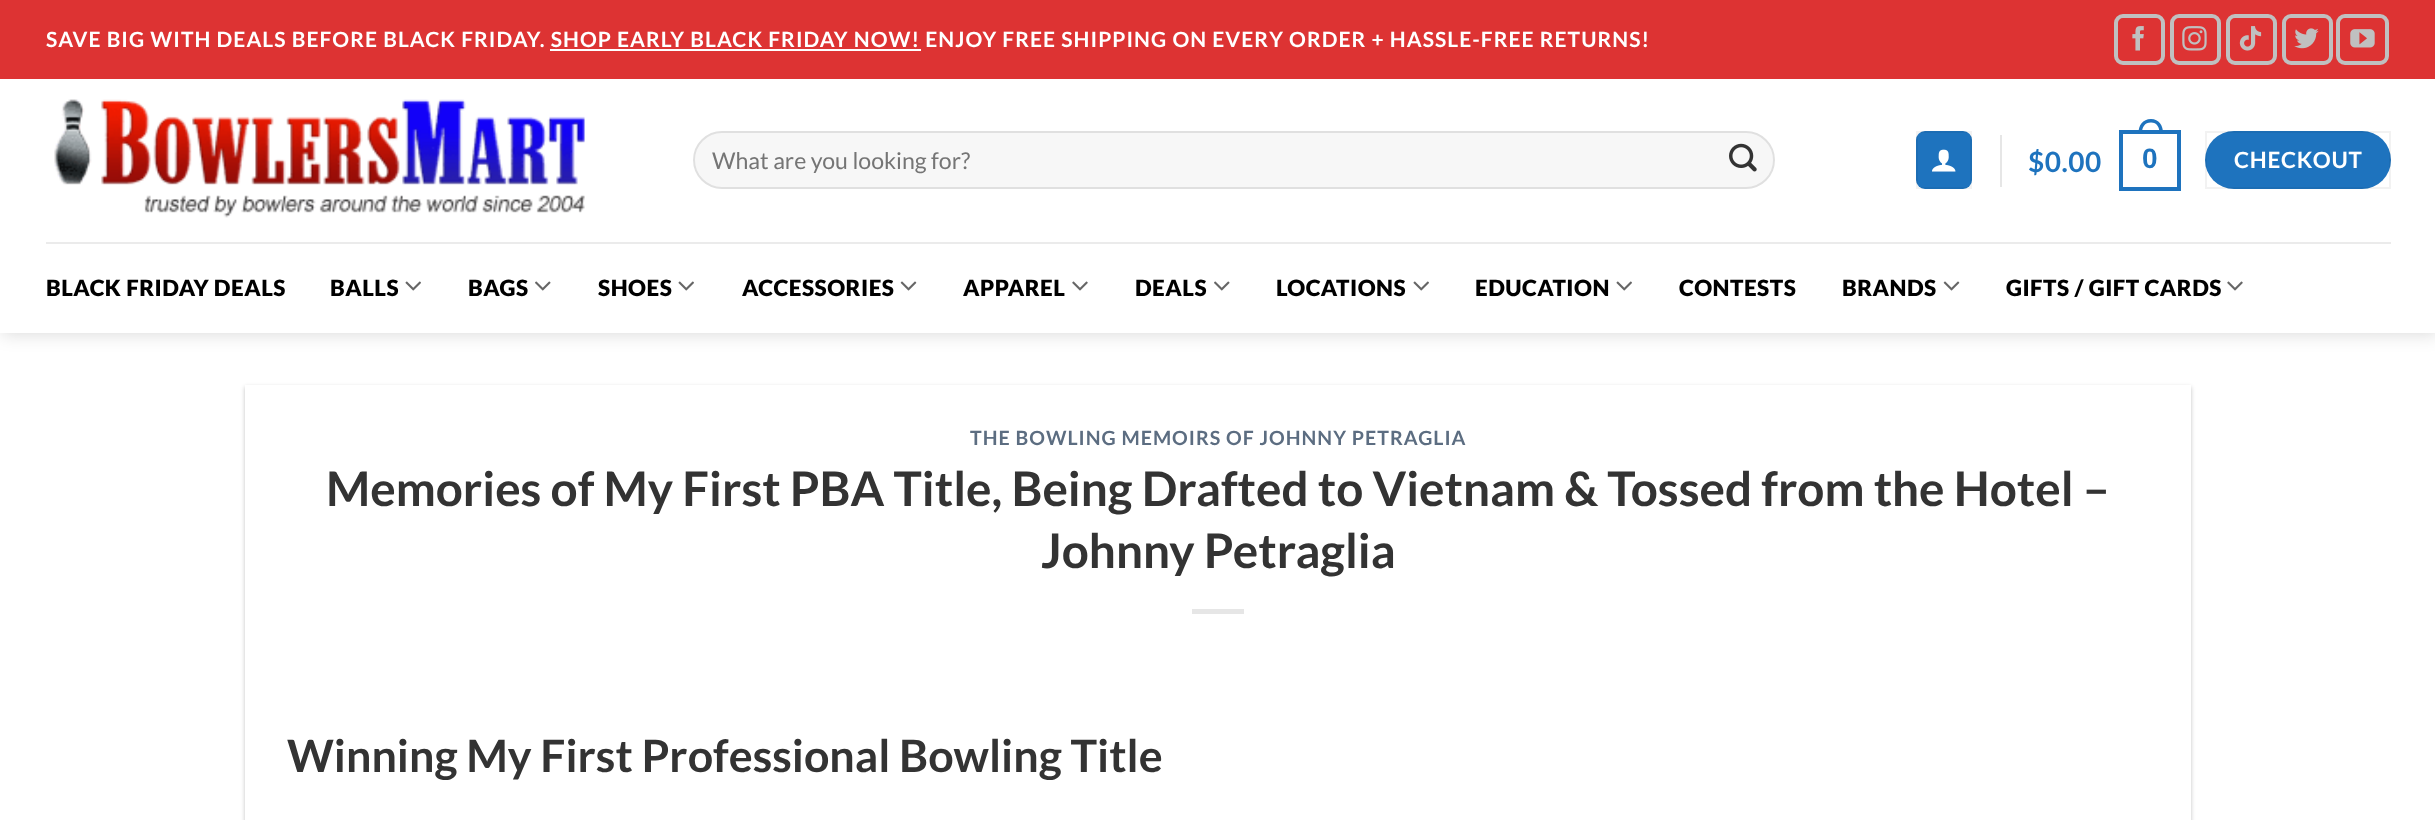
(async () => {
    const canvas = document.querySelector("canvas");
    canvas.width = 2435;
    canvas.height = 820;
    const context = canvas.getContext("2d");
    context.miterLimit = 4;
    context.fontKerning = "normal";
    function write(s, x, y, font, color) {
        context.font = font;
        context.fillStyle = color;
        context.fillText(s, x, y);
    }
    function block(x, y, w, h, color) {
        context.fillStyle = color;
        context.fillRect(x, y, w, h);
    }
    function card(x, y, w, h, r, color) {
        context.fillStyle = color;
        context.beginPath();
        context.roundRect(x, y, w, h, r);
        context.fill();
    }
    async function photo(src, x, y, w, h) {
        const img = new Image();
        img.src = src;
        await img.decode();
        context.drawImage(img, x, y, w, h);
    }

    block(0, 0, 2435, 820, "rgb(255, 255, 255)");
    context.fillStyle = "rgba(0, 0, 0, 0.15)";
    context.filter = "blur(9px)";
    context.beginPath();
    context.rect(2, 2, 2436, 332);
    context.fill();
    context.filter = "none";
    block(0, 0, 2435, 79, "rgb(221, 51, 51)");
    context.letterSpacing = "1.05px";
    write("SAVE BIG WITH DEALS BEFORE BLACK FRIDAY. SHOP EARLY BLACK FRIDAY NOW! ENJOY FREE SHIPPING ON EVERY ORDER + HASSLE-FREE RETURNS!", 46, 47, "bold 21px Lato", "rgb(255, 255, 255)");
    block(550, 49, 371, 2, "rgb(255, 255, 255)");
    context.beginPath();
    context.roundRect(2116, 16, 47, 47, 7);
    context.strokeStyle = "rgb(192, 192, 192)";
    context.lineWidth = 4;
    context.stroke();
    await photo("media/1.png", 2132, 26, 12, 25);
    context.beginPath();
    context.roundRect(2172, 16, 47, 47, 7);
    context.stroke();
    await photo("media/2.png", 2182, 26, 25, 25);
    context.beginPath();
    context.roundRect(2228, 16, 47, 47, 7);
    context.stroke();
    await photo("media/3.png", 2239, 26, 23, 25);
    context.beginPath();
    context.roundRect(2284, 16, 47, 47, 7);
    context.stroke();
    await photo("media/4.png", 2294, 28, 25, 21);
    context.beginPath();
    context.roundRect(2338, 16, 49, 47, 7);
    context.stroke();
    await photo("media/5.png", 2350, 29, 25, 19);
    block(0, 79, 2435, 254, "rgb(255, 255, 255)");
    await photo("media/6.png", 54, 99, 531, 119);
    card(693, 131, 1082, 58, 29, "rgb(247, 247, 247)");
    context.beginPath();
    context.roundRect(694, 132, 1080, 56, 28);
    context.strokeStyle = "rgba(0, 0, 0, 0.09)";
    context.lineWidth = 2;
    context.stroke();
    context.letterSpacing = "0px";
    write("What are you looking for?", 712, 169, "23.1px Lato", "rgb(117, 117, 117)");
    await photo("media/7.png", 1729, 143, 28, 29);
    card(1916, 131, 56, 58, 9, "rgb(30, 115, 190)");
    context.strokeStyle = "rgba(0, 0, 0, 0.05)";
    context.strokeRect(1917, 132, 54, 56);
    await photo("media/8.png", 1932, 149, 24, 23);
    block(2000, 135, 2, 52, "rgb(230, 230, 230)");
    context.letterSpacing = "0.5px";
    write("$0.00", 2028, 172, "bold 28px Lato", "rgb(30, 115, 190)");
    context.strokeStyle = "rgb(30, 115, 190)";
    context.lineWidth = 4;
    context.strokeRect(2121, 132, 58, 57);
    context.beginPath();
    context.moveTo(2151, 119);
    context.bezierCurveTo(2159, 119, 2163, 125.5, 2163, 133);
    context.lineTo(2138.5, 133);
    context.bezierCurveTo(2138.5, 125.5, 2142.5, 119, 2151, 119);
    context.closePath();
    context.moveTo(2151, 122.5);
    context.bezierCurveTo(2157, 122.5, 2159.5, 127.5, 2159.5, 133);
    context.lineTo(2142, 133);
    context.bezierCurveTo(2142, 127.5, 2144.5, 122.5, 2151, 122.5);
    context.closePath();
    context.fill("evenodd");
    write("0", 2142, 168, "bold 28px Liberation Sans", "rgb(30, 115, 190)");
    card(2205, 131, 186, 58, 29, "rgb(30, 115, 190)");
    context.strokeStyle = "rgba(0, 0, 0, 0.05)";
    context.lineWidth = 2;
    context.strokeRect(2206, 132, 184, 56);
    context.letterSpacing = "0.75px";
    write("CHECKOUT", 2234, 168, "bold 22.4px Lato", "rgb(255, 255, 255)");
    block(46, 242, 2345, 2, "rgb(235, 235, 235)");
    context.letterSpacing = "0.5px";
    write("BLACK FRIDAY DEALS", 46, 296, "900 22.4px Lato", "rgb(0, 0, 0)");
    write("BALLS", 330, 296, "900 22.4px Lato", "rgb(0, 0, 0)");
    await photo("media/9.png", 405, 281, 16, 10);
    write("BAGS", 468, 296, "900 22.4px Lato", "rgb(0, 0, 0)");
    await photo("media/10.png", 535, 281, 16, 10);
    write("SHOES", 598, 296, "900 22.4px Lato", "rgb(0, 0, 0)");
    await photo("media/9.png", 678, 281, 16, 10);
    write("ACCESSORIES", 742, 296, "900 22.4px Lato", "rgb(0, 0, 0)");
    await photo("media/11.png", 900, 281, 17, 10);
    write("APPAREL", 963, 296, "900 22.4px Lato", "rgb(0, 0, 0)");
    await photo("media/12.png", 1072, 281, 16, 10);
    write("DEALS", 1135, 296, "900 22.4px Lato", "rgb(0, 0, 0)");
    await photo("media/10.png", 1214, 281, 16, 10);
    write("LOCATIONS", 1276, 296, "900 22.4px Lato", "rgb(0, 0, 0)");
    await photo("media/9.png", 1413, 281, 16, 10);
    write("EDUCATION", 1475, 296, "900 22.4px Lato", "rgb(0, 0, 0)");
    await photo("media/9.png", 1616, 281, 16, 10);
    write("CONTESTS", 1679, 296, "900 22.4px Lato", "rgb(0, 0, 0)");
    write("BRANDS", 1842, 296, "900 22.4px Lato", "rgb(0, 0, 0)");
    await photo("media/11.png", 1943, 281, 17, 10);
    write("GIFTS / GIFT CARDS", 2006, 296, "900 22.4px Lato", "rgb(0, 0, 0)");
    await photo("media/12.png", 2227, 281, 16, 10);
    context.save();
    context.beginPath();
    context.moveTo(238, 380);
    context.lineTo(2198, 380);
    context.lineTo(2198, 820);
    context.lineTo(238, 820);
    context.closePath();
    context.moveTo(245, 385);
    context.lineTo(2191, 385);
    context.lineTo(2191, 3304);
    context.lineTo(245, 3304);
    context.closePath();
    context.clip("evenodd");
    context.fillStyle = "rgba(0, 0, 0, 0.24)";
    context.filter = "blur(2px)";
    context.beginPath();
    context.rect(245, 387, 1946, 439);
    context.fill();
    context.filter = "none";
    context.restore();
    context.letterSpacing = "1px";
    write("THE BOWLING MEMOIRS OF JOHNNY PETRAGLIA", 970, 445, "bold 19.6px Lato", "rgb(92, 109, 129)");
    context.letterSpacing = "0px";
    write("Memories of My First PBA Title, Being Drafted to Vietnam & Tossed from the Hotel –", 326, 506, "bold 47.6px Lato", "rgb(51, 51, 51)");
    write("Johnny Petraglia", 1041, 568, "bold 47.6px Lato", "rgb(51, 51, 51)");
    block(1192, 609, 52, 5, "rgb(230, 230, 230)");
    write("Winning My First Professional Bowling Title", 287, 772, "bold 44.75px Lato", "rgb(51, 51, 51)");
})();
